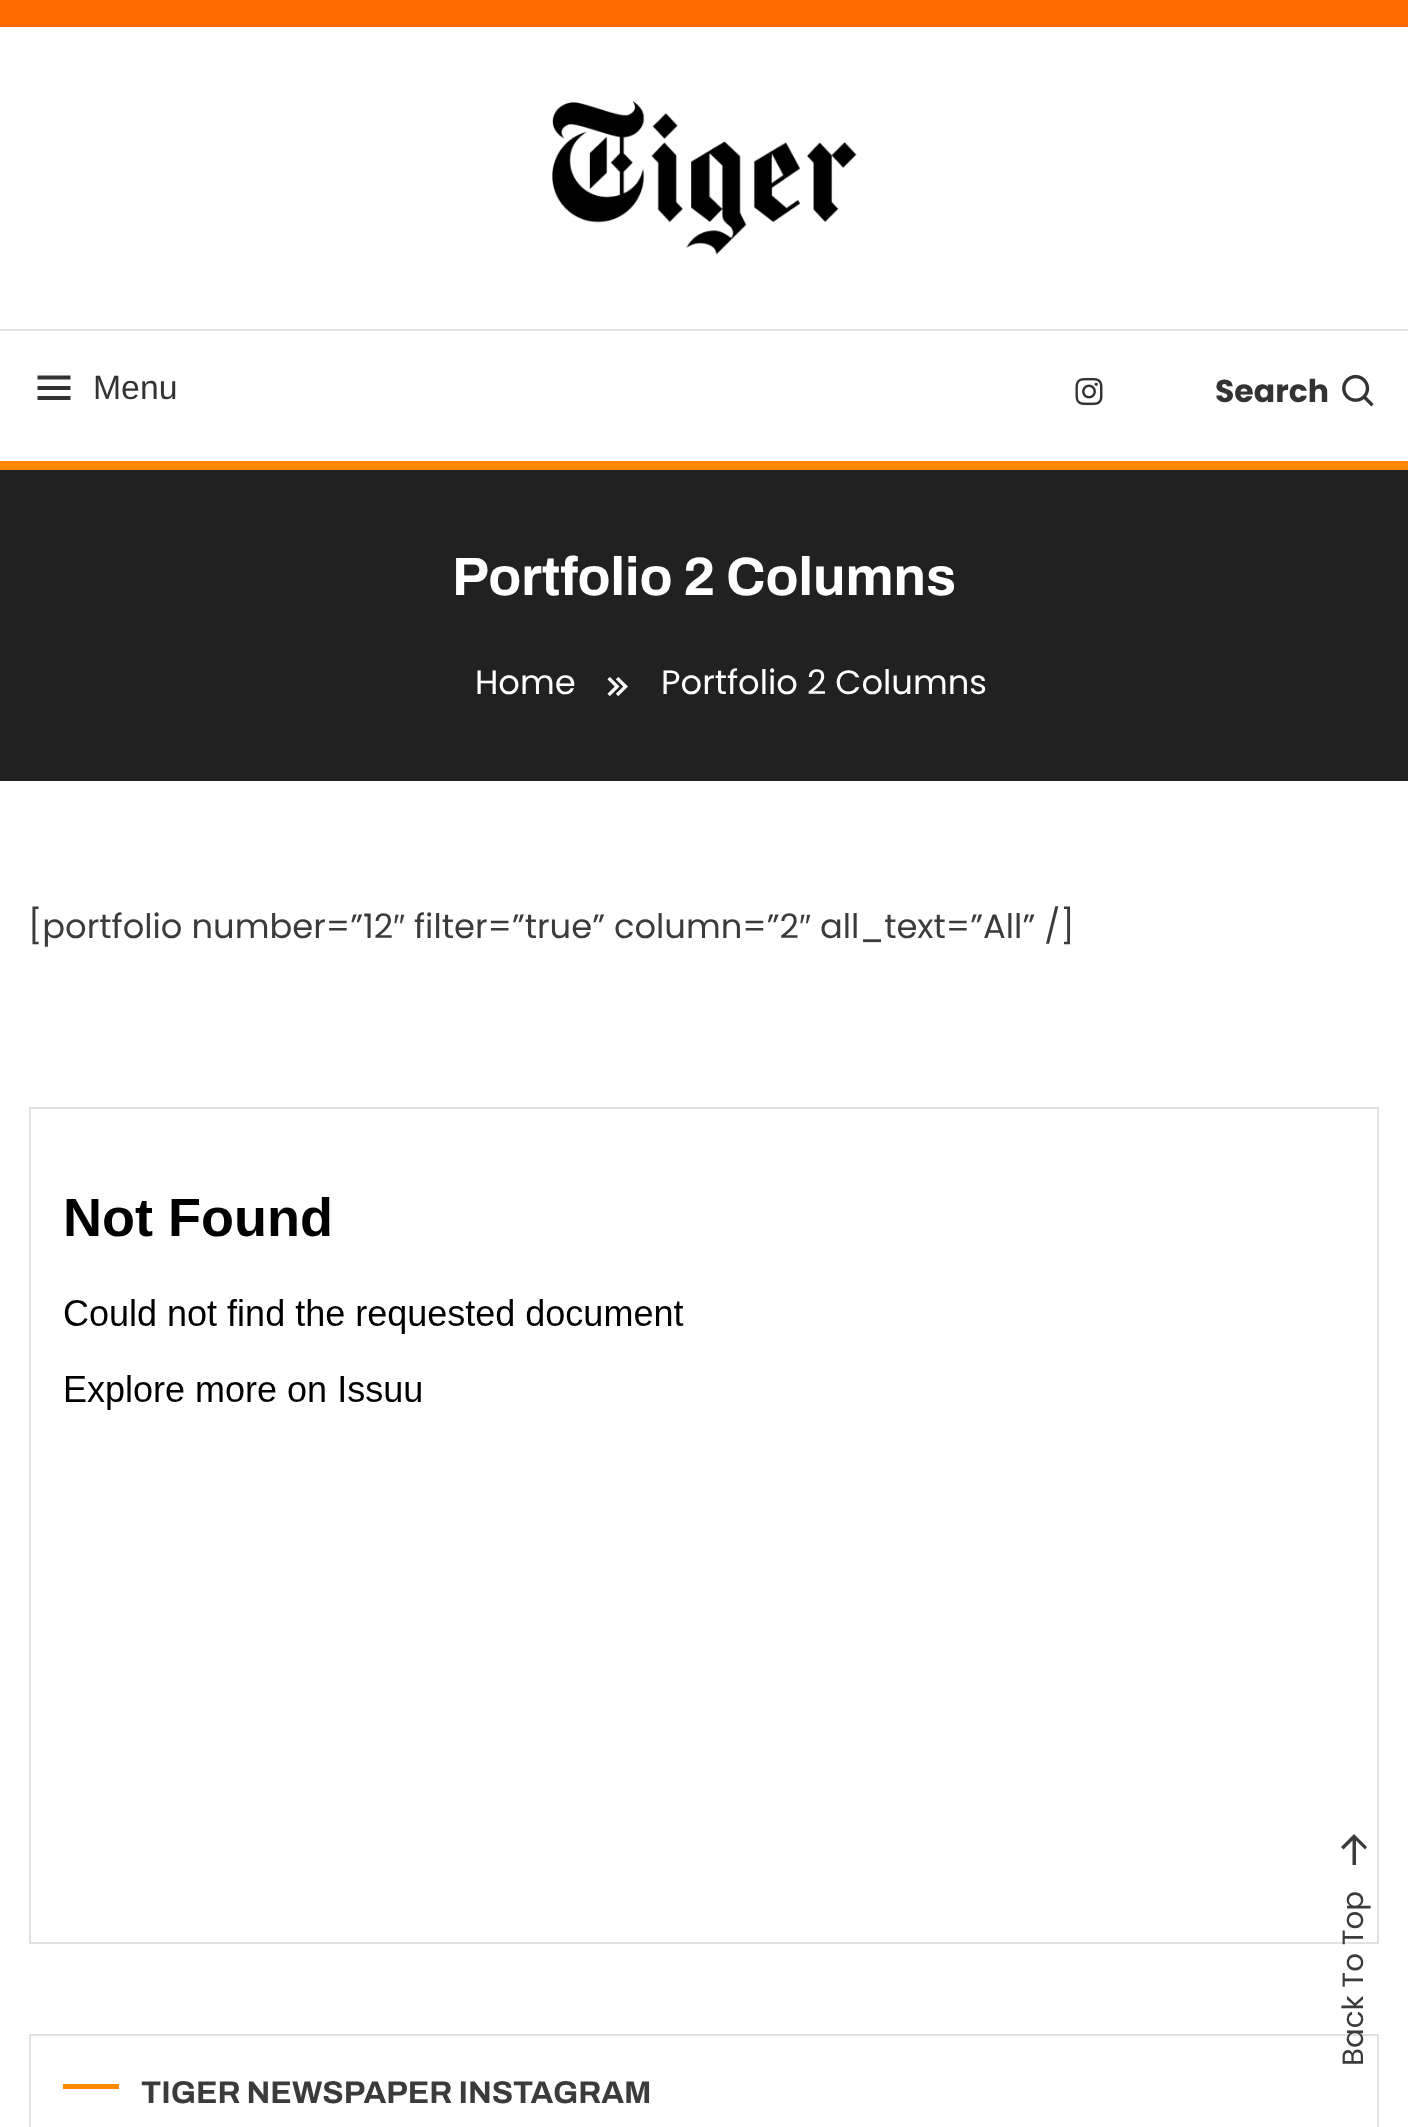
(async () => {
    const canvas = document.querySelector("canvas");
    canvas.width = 1408;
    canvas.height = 2127;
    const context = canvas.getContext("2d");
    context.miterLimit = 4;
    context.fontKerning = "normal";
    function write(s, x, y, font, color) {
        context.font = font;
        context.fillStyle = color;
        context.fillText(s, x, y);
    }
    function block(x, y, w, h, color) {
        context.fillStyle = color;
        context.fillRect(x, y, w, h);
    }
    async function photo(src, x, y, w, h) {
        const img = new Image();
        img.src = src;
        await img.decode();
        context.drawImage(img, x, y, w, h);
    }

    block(0, 0, 1408, 2127, "rgb(255, 255, 255)");
    block(0, 0, 1408, 27, "rgb(255, 106, 0)");
    await photo("media/1.png", 552, 100, 305, 155);
    block(0, 329, 1408, 2, "rgb(225, 225, 225)");
    context.fillStyle = "rgb(51, 51, 51)";
    context.beginPath();
    context.moveTo(37.5, 375.5);
    context.lineTo(70.5, 375.5);
    context.lineTo(70.5, 379.5);
    context.lineTo(37.5, 379.5);
    context.closePath();
    context.moveTo(37.5, 386);
    context.lineTo(70.5, 386);
    context.lineTo(70.5, 390);
    context.lineTo(37.5, 390);
    context.closePath();
    context.moveTo(37.5, 396);
    context.lineTo(70.5, 396);
    context.lineTo(70.5, 400);
    context.lineTo(37.5, 400);
    context.closePath();
    context.fill();
    write("Menu", 93, 399, "33.75px Liberation Sans", "rgb(51, 51, 51)");
    await photo("media/2.png", 1075, 378, 28, 28);
    write("Search", 1215, 402, "bold 31.5px Poppins", "rgb(51, 51, 51)");
    await photo("media/3.png", 1342, 374, 32, 33);
    block(0, 470, 1408, 311, "rgb(33, 33, 33)");
    block(0, 461, 1408, 9, "rgb(255, 136, 0)");
    write("Portfolio 2 Columns", 452, 595, "bold 54px Archivo", "rgb(255, 255, 255)");
    write("Home", 475, 694, "33.75px Poppins", "rgb(255, 255, 255)");
    await photo("media/4.png", 607, 677, 21, 20);
    write("Portfolio 2 Columns", 661, 694, "33.75px Poppins", "rgb(255, 255, 255)");
    write("[portfolio number=”12", 28, 938, "33.75px Poppins", "rgb(59, 59, 59)");
    write("″", 393, 938, "33.75px Liberation Sans", "rgb(59, 59, 59)");
    write("filter=”true” column=”2", 414, 938, "33.75px Poppins", "rgb(59, 59, 59)");
    write("″", 799, 938, "33.75px Liberation Sans", "rgb(59, 59, 59)");
    write("all_text=”All” /]", 820, 938, "33.75px Poppins", "rgb(59, 59, 59)");
    context.strokeStyle = "rgb(225, 225, 225)";
    context.lineWidth = 2;
    context.strokeRect(30, 1108, 1348, 835);
    await photo("media/5.png", 64, 1197, 620, 213);
    context.strokeRect(30, 2035, 1348, 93);
    block(63, 2084, 56, 5, "rgb(255, 136, 0)");
    write("TIGER NEWSPAPER INSTAGRAM", 141, 2103, "bold 31.5px Archivo", "rgb(59, 59, 59)");
    context.beginPath();
    context.moveTo(1356, 1865);
    context.lineTo(1356, 1840.5);
    context.lineTo(1365, 1849.5);
    context.lineTo(1367, 1847);
    context.lineTo(1354, 1834);
    context.lineTo(1341, 1847);
    context.lineTo(1343.5, 1849.5);
    context.lineTo(1352.5, 1840.5);
    context.lineTo(1352.5, 1865);
    context.closePath();
    context.fill();
    context.font = "29.25px Poppins";
    context.save();
    context.translate(1363, 2066);
    context.rotate(-90 * Math.PI / 180);
    context.fillText("Back To Top", 0, 0);
    context.restore();
})();
